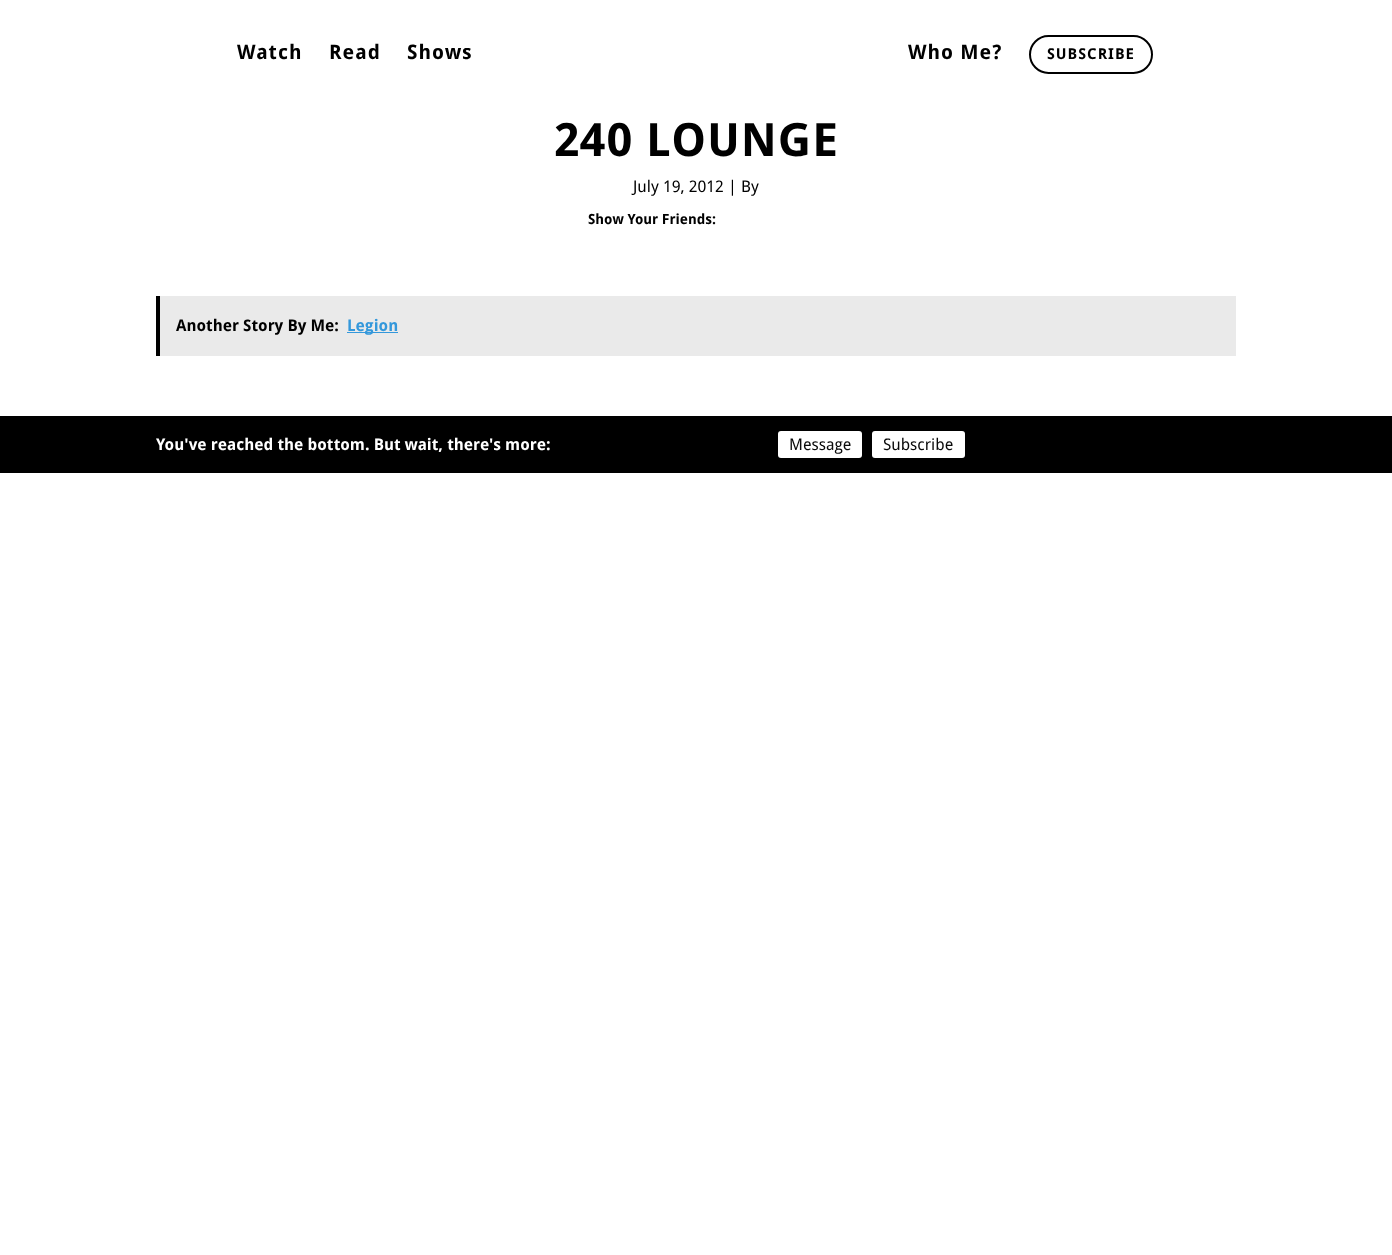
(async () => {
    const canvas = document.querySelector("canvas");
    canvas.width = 1392;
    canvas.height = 1255;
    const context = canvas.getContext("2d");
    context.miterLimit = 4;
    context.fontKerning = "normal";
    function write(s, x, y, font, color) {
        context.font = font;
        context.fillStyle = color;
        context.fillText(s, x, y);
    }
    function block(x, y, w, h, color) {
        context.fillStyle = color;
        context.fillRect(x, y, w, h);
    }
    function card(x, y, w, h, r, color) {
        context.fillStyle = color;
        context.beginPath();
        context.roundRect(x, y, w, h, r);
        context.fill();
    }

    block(0, 0, 1392, 1255, "rgb(255, 255, 255)");
    context.letterSpacing = "1px";
    write("Watch", 237, 59, "bold 20px Droid Sans", "rgb(0, 0, 0)");
    write("Read", 329, 59, "bold 20px Droid Sans", "rgb(0, 0, 0)");
    write("Shows", 407, 59, "bold 20px Droid Sans", "rgb(0, 0, 0)");
    write("Who Me?", 908, 59, "bold 20px Droid Sans", "rgb(0, 0, 0)");
    context.beginPath();
    context.roundRect(1030, 36, 122, 37, 18.5);
    context.strokeStyle = "rgb(0, 0, 0)";
    context.lineWidth = 2;
    context.stroke();
    write("SUBSCRIBE", 1047, 59, "bold 15px Droid Sans", "rgb(0, 0, 0)");
    write("240 LOUNGE", 554, 156, "bold 46px Droid Sans", "rgb(0, 0, 0)");
    context.letterSpacing = "0px";
    write("July 19, 2012 | By", 633, 192, "16px Droid Sans", "rgb(0, 0, 0)");
    write("Show Your Friends:", 588, 224, "bold 14px Droid Sans", "rgb(0, 0, 0)");
    block(160, 296, 1076, 60, "rgb(234, 234, 234)");
    block(156, 296, 4, 60, "rgb(0, 0, 0)");
    write("Another Story By Me:", 176, 331, "bold 16px Droid Sans", "rgb(0, 0, 0)");
    block(347, 332, 51, 1, "rgb(52, 152, 219)");
    write("Legion", 347, 331, "bold 16px Droid Sans", "rgb(52, 152, 219)");
    block(0, 416, 1392, 57, "rgb(0, 0, 0)");
    write("You've reached the bottom. But wait, there's more:", 156, 450, "bold 16px Droid Sans", "rgb(255, 255, 255)");
    card(778, 431, 84, 27, 3, "rgb(255, 255, 255)");
    write("Message", 789, 450, "16px Droid Sans", "rgb(10, 10, 10)");
    card(872, 431, 93, 27, 3, "rgb(255, 255, 255)");
    write("Subscribe", 883, 450, "16px Droid Sans", "rgb(10, 10, 10)");
})();
